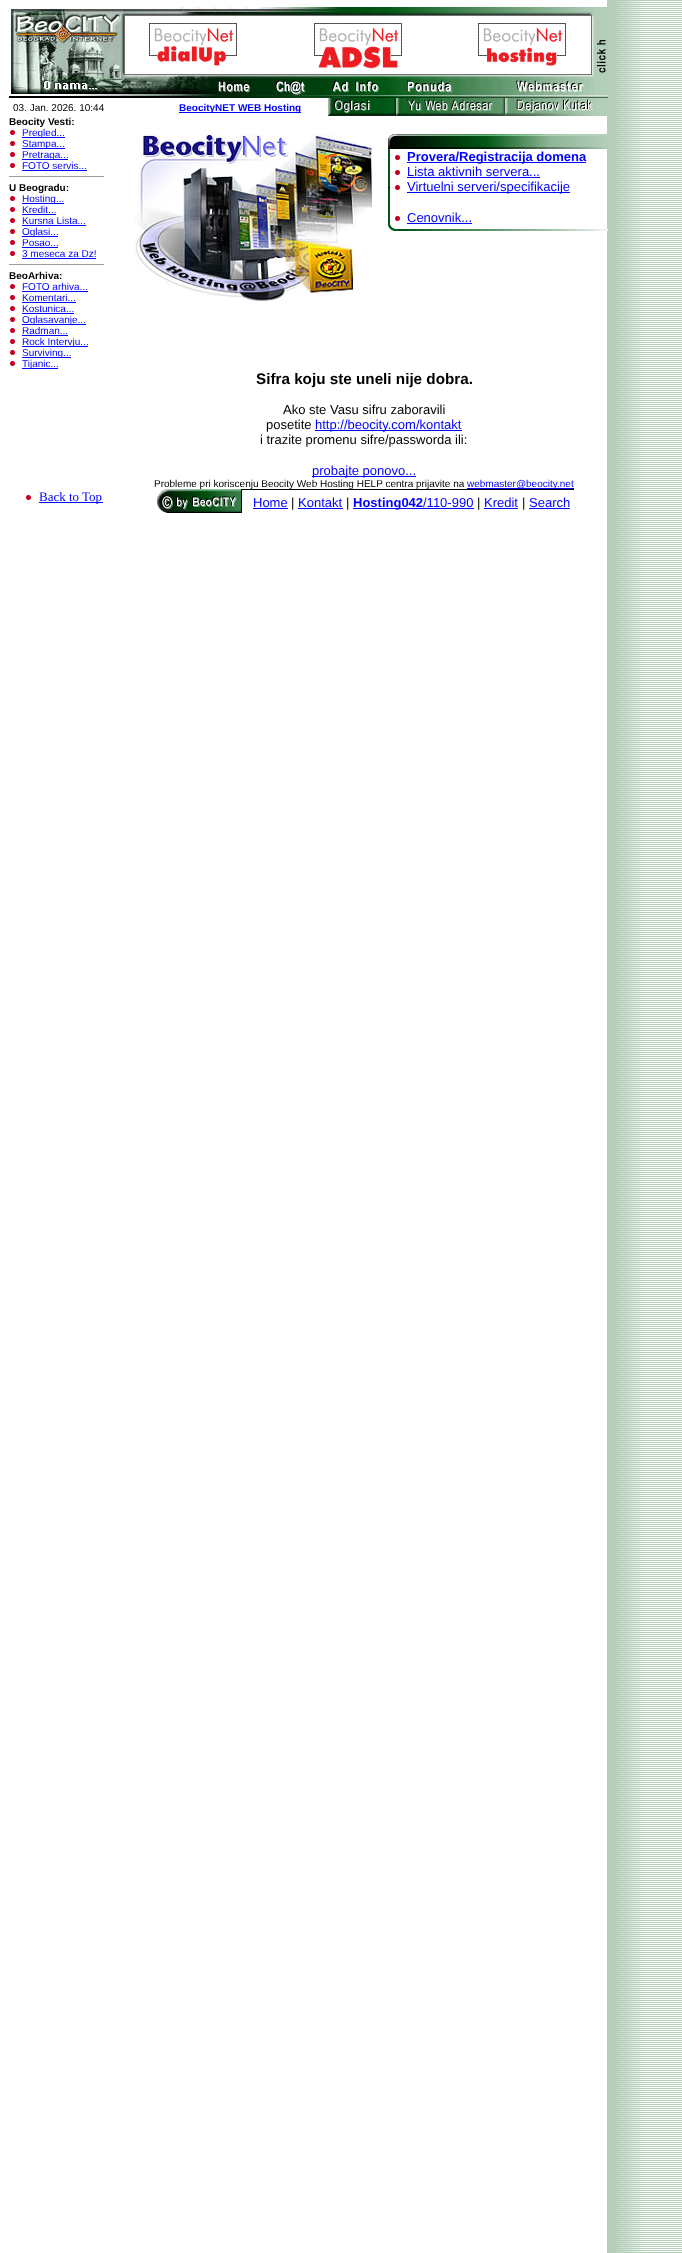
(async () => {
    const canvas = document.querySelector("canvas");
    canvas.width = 682;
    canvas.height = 2253;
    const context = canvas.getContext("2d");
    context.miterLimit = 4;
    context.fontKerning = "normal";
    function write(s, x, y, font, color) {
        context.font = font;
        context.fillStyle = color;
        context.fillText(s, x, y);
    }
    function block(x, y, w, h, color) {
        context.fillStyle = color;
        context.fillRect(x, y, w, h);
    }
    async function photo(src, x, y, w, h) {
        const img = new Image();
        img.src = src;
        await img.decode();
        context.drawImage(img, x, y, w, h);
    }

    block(0, 0, 682, 2253, "rgb(255, 255, 255)");
    await photo("media/1.png", 607, 0, 75, 2253);
    await photo("media/2.png", 9, 7, 599, 8);
    await photo("media/3.png", 11, 15, 113, 60);
    await photo("media/4.png", 124, 15, 468, 60);
    await photo("media/5.png", 592, 15, 16, 60);
    await photo("media/6.png", 9, 75, 599, 23);
    write("03. Jan. 2026. 10:44", 13, 111, "10px Liberation Sans", "rgb(0, 0, 0)");
    block(179, 112, 122, 1, "rgb(0, 0, 255)");
    write("BeocityNET WEB Hosting", 179, 111, "bold 10px Liberation Sans", "rgb(0, 0, 255)");
    await photo("media/7.png", 328, 98, 280, 18);
    write("Beocity Vesti:", 9, 125, "bold 10px Liberation Sans", "rgb(0, 0, 0)");
    await photo("media/8.png", 10, 130, 5, 5);
    block(22, 137, 43, 1, "rgb(0, 0, 255)");
    write("Pregled...", 22, 136, "10px Liberation Sans", "rgb(0, 0, 255)");
    await photo("media/8.png", 10, 141, 5, 5);
    block(22, 148, 43, 1, "rgb(0, 0, 255)");
    write("Stampa...", 22, 147, "10px Liberation Sans", "rgb(0, 0, 255)");
    await photo("media/8.png", 10, 152, 5, 5);
    block(22, 159, 46, 1, "rgb(0, 0, 255)");
    write("Pretraga...", 22, 158, "10px Liberation Sans", "rgb(0, 0, 255)");
    await photo("media/8.png", 10, 163, 5, 5);
    write("FOTO servis...", 22, 169, "10px Liberation Sans", "rgb(0, 0, 255)");
    block(22, 170, 65, 1, "rgb(0, 0, 255)");
    block(9, 176, 96, 1, "rgb(159, 159, 159)");
    block(104, 176, 1, 1, "rgb(238, 238, 238)");
    write("U Beogradu:", 9, 191, "bold 10px Liberation Sans", "rgb(0, 0, 0)");
    await photo("media/8.png", 10, 196, 5, 5);
    block(22, 203, 42, 1, "rgb(0, 0, 255)");
    write("Hosting...", 22, 202, "10px Liberation Sans", "rgb(0, 0, 255)");
    await photo("media/8.png", 10, 207, 5, 5);
    write("Kredit...", 22, 213, "10px Liberation Sans", "rgb(0, 0, 255)");
    block(22, 214, 34, 1, "rgb(0, 0, 255)");
    await photo("media/8.png", 10, 218, 5, 5);
    write("Kursna Lista...", 22, 224, "10px Liberation Sans", "rgb(0, 0, 255)");
    block(22, 225, 64, 1, "rgb(0, 0, 255)");
    await photo("media/8.png", 10, 229, 5, 5);
    block(22, 236, 36, 1, "rgb(0, 0, 255)");
    write("Oglasi...", 22, 235, "10px Liberation Sans", "rgb(0, 0, 255)");
    await photo("media/8.png", 10, 240, 5, 5);
    write("Posao...", 22, 246, "10px Liberation Sans", "rgb(0, 0, 255)");
    block(22, 247, 36, 1, "rgb(0, 0, 255)");
    await photo("media/8.png", 10, 251, 5, 5);
    write("3 meseca za Dz!", 22, 257, "10px Liberation Sans", "rgb(0, 0, 255)");
    block(22, 258, 74, 1, "rgb(0, 0, 255)");
    block(9, 264, 96, 1, "rgb(159, 159, 159)");
    block(104, 264, 1, 1, "rgb(238, 238, 238)");
    write("BeoArhiva:", 9, 279, "bold 10px Liberation Sans", "rgb(0, 0, 0)");
    await photo("media/8.png", 10, 284, 5, 5);
    write("FOTO arhiva...", 22, 290, "10px Liberation Sans", "rgb(0, 0, 255)");
    block(22, 291, 66, 1, "rgb(0, 0, 255)");
    await photo("media/8.png", 10, 295, 5, 5);
    write("Komentari...", 22, 301, "10px Liberation Sans", "rgb(0, 0, 255)");
    block(22, 302, 54, 1, "rgb(0, 0, 255)");
    await photo("media/8.png", 10, 306, 5, 5);
    write("Kostunica...", 22, 312, "10px Liberation Sans", "rgb(0, 0, 255)");
    block(22, 313, 52, 1, "rgb(0, 0, 255)");
    await photo("media/8.png", 10, 317, 5, 5);
    block(22, 324, 64, 1, "rgb(0, 0, 255)");
    write("Oglasavanje...", 22, 323, "10px Liberation Sans", "rgb(0, 0, 255)");
    await photo("media/8.png", 10, 328, 5, 5);
    write("Radman...", 22, 334, "10px Liberation Sans", "rgb(0, 0, 255)");
    block(22, 335, 46, 1, "rgb(0, 0, 255)");
    await photo("media/8.png", 10, 339, 5, 5);
    block(22, 346, 66, 1, "rgb(0, 0, 255)");
    write("Rock Intervju...", 22, 345, "10px Liberation Sans", "rgb(0, 0, 255)");
    await photo("media/8.png", 10, 350, 5, 5);
    block(22, 357, 49, 1, "rgb(0, 0, 255)");
    write("Surviving...", 22, 356, "10px Liberation Sans", "rgb(0, 0, 255)");
    await photo("media/8.png", 10, 361, 5, 5);
    block(22, 368, 36, 1, "rgb(0, 0, 255)");
    write("Tijanic...", 22, 367, "10px Liberation Sans", "rgb(0, 0, 255)");
    await photo("media/9.png", 134, 134, 239, 167);
    await photo("media/10.png", 388, 134, 220, 15);
    block(388, 149, 2, 76, "rgb(0, 88, 20)");
    block(388, 187, 2, 1, "rgb(0, 0, 0)");
    await photo("media/8.png", 395, 155, 5, 5);
    block(407, 162, 179, 1, "rgb(0, 0, 255)");
    write("Provera/Registracija domena", 407, 161, "bold 13px Liberation Sans", "rgb(0, 0, 255)");
    await photo("media/8.png", 395, 170, 5, 5);
    write("Lista aktivnih servera...", 407, 176, "13px Liberation Sans", "rgb(0, 0, 255)");
    block(407, 177, 133, 1, "rgb(0, 0, 255)");
    await photo("media/8.png", 395, 185, 5, 5);
    block(407, 192, 163, 1, "rgb(0, 0, 255)");
    write("Virtuelni serveri/specifikacije", 407, 191, "13px Liberation Sans", "rgb(0, 0, 255)");
    await photo("media/8.png", 395, 216, 5, 5);
    write("Cenovnik...", 407, 222, "13px Liberation Sans", "rgb(0, 0, 255)");
    block(407, 223, 65, 1, "rgb(0, 0, 255)");
    await photo("media/11.png", 388, 225, 220, 6);
    write("Sifra koju ste uneli nije dobra.", 256, 384, "bold 15.25px Liberation Sans", "rgb(0, 0, 0)");
    write("Ako ste Vasu sifru zaboravili", 283, 414, "13px Liberation Sans", "rgb(0, 0, 0)");
    write("posetite", 266, 429, "13px Liberation Sans", "rgb(0, 0, 0)");
    block(315, 430, 147, 1, "rgb(0, 0, 255)");
    write("http://beocity.com/kontakt", 315, 429, "13px Liberation Sans", "rgb(0, 0, 255)");
    write("i trazite promenu sifre/passworda ili:", 260, 444, "13px Liberation Sans", "rgb(0, 0, 0)");
    block(312, 476, 104, 1, "rgb(0, 0, 255)");
    write("probajte ponovo...", 312, 475, "13px Liberation Sans", "rgb(0, 0, 255)");
    await photo("media/8.png", 26, 495, 5, 5);
    block(39, 502, 64, 1, "rgb(0, 0, 255)");
    write("Back to Top", 39, 501, "13px Liberation Serif", "rgb(0, 0, 255)");
    block(242, 489, 332, 1, "rgb(0, 0, 0)");
    write("Probleme pri koriscenju Beocity Web Hosting HELP centra prijavite na", 154, 487, "10px Liberation Sans", "rgb(0, 0, 0)");
    block(467, 488, 107, 1, "rgb(0, 0, 255)");
    write("webmaster@beocity.net", 467, 487, "10px Liberation Sans", "rgb(0, 0, 255)");
    await photo("media/12.png", 157, 489, 85, 24);
    write("Home", 253, 507, "13px Liberation Sans", "rgb(0, 0, 255)");
    block(253, 508, 35, 1, "rgb(0, 0, 255)");
    write("|", 291, 507, "13px Liberation Sans", "rgb(0, 0, 0)");
    write("Kontakt", 298, 507, "13px Liberation Sans", "rgb(0, 0, 255)");
    block(298, 508, 45, 1, "rgb(0, 0, 255)");
    write("|", 346, 507, "13px Liberation Sans", "rgb(0, 0, 0)");
    block(353, 508, 121, 1, "rgb(0, 0, 255)");
    write("Hosting042", 353, 507, "bold 13px Liberation Sans", "rgb(0, 0, 255)");
    write("/110-990", 423, 507, "13px Liberation Sans", "rgb(0, 0, 255)");
    write("|", 477, 507, "13px Liberation Sans", "rgb(0, 0, 0)");
    write("Kredit", 484, 507, "13px Liberation Sans", "rgb(0, 0, 255)");
    block(484, 508, 34, 1, "rgb(0, 0, 255)");
    write("|", 522, 507, "13px Liberation Sans", "rgb(0, 0, 0)");
    write("Search", 529, 507, "13px Liberation Sans", "rgb(0, 0, 255)");
    block(529, 508, 41, 1, "rgb(0, 0, 255)");
})();
